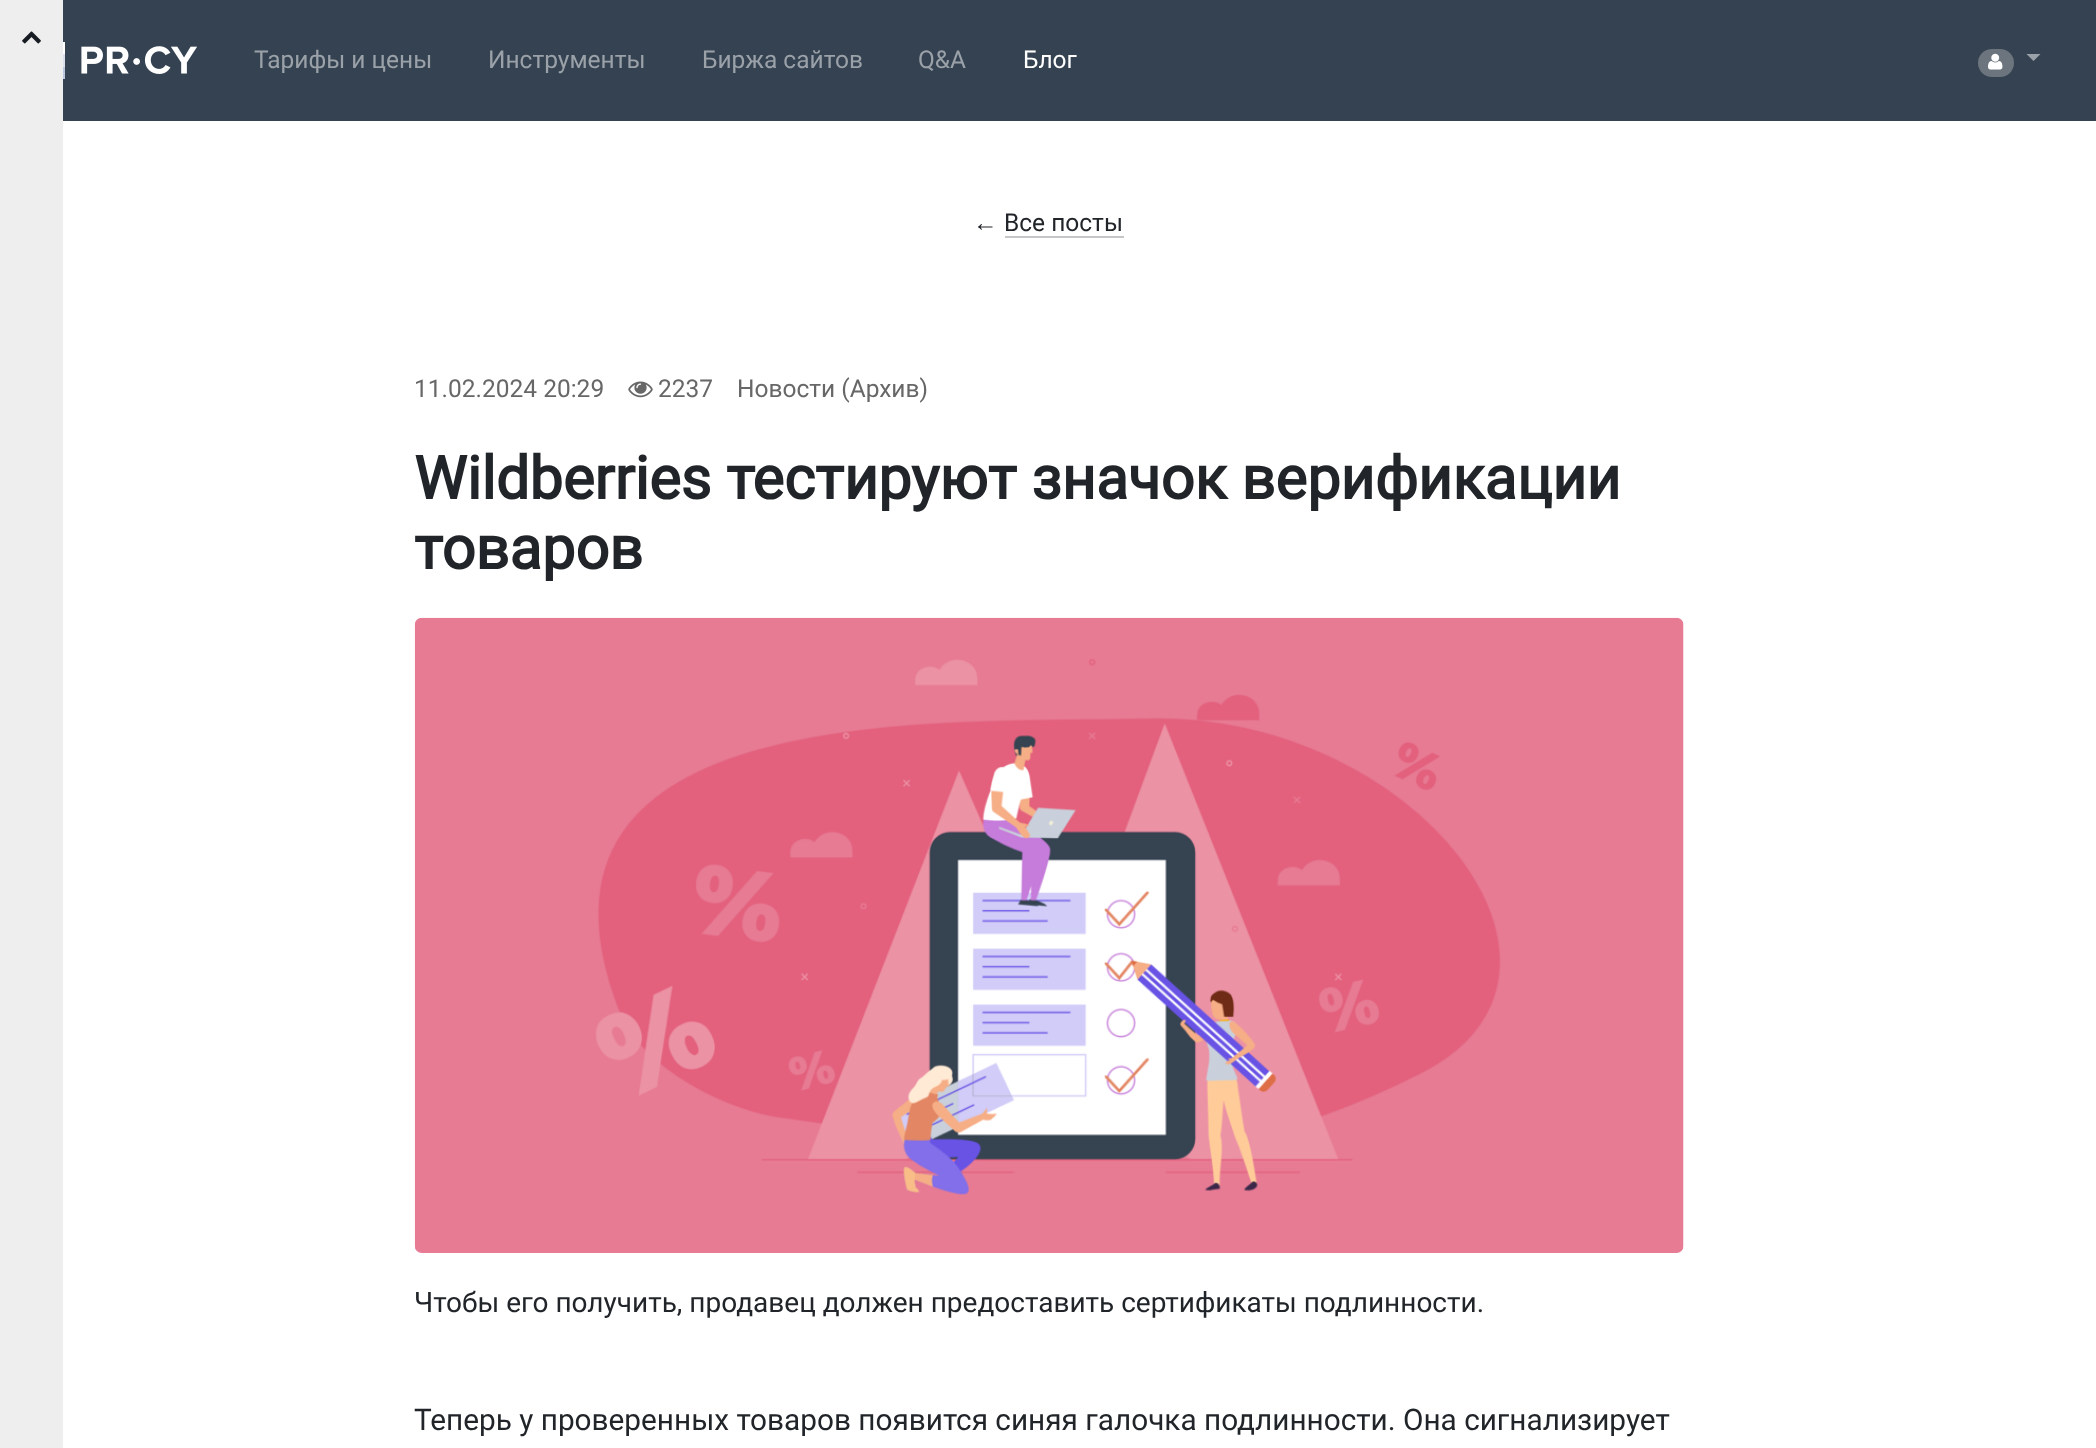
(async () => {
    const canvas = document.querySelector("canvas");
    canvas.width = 2096;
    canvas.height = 1448;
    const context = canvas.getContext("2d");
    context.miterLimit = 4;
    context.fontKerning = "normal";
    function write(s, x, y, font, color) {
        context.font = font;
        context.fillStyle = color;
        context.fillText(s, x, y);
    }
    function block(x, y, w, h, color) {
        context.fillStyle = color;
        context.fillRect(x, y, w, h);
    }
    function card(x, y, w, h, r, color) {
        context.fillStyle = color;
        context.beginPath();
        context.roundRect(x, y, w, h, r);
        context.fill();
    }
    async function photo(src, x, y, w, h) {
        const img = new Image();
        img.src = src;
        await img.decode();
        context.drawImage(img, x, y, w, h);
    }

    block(0, 0, 2096, 1448, "rgb(255, 255, 255)");
    block(0, 0, 63, 1448, "rgb(238, 238, 238)");
    await photo("media/1.png", 22, 31, 19, 13);
    block(63, 0, 2033, 121, "rgb(53, 66, 81)");
    await photo("media/2.png", 63, 42, 134, 37);
    write("Тарифы и цены", 254, 68, "24.5px Roboto", "rgb(154, 161, 168)");
    write("Инструменты", 488, 68, "24.5px Roboto", "rgb(154, 161, 168)");
    write("Биржа сайтов", 702, 68, "24.5px Roboto", "rgb(154, 161, 168)");
    write("Q&A", 918, 68, "24.5px Roboto", "rgb(154, 161, 168)");
    write("Блог", 1023, 68, "24.5px Roboto", "rgb(255, 255, 255)");
    card(1978, 49, 36, 28, 14, "rgb(108, 117, 125)");
    await photo("media/3.png", 1988, 53, 15, 17);
    context.fillStyle = "rgb(154, 161, 168)";
    context.beginPath();
    context.moveTo(2026.5, 54);
    context.lineTo(2040.5, 54);
    context.lineTo(2033.5, 61);
    context.closePath();
    context.fill();
    write("←", 973, 231, "24.5px Liberation Sans", "rgb(33, 37, 41)");
    write("Все посты", 1004, 231, "24.5px Roboto", "rgb(33, 37, 41)");
    block(1005, 236, 119, 2, "rgb(198, 198, 200)");
    write("11.02.2024 20:29", 414, 397, "24.5px Roboto", "rgb(103, 103, 103)");
    await photo("media/4.png", 628, 381, 25, 17);
    write("2237", 658, 397, "24.5px Roboto", "rgb(103, 103, 103)");
    write("Новости (Архив)", 737, 397, "24.5px Roboto", "rgb(103, 103, 103)");
    write("Wildberries тестируют значок верификации", 414, 499, "bold 59.5px Roboto", "rgb(33, 37, 41)");
    write("товаров", 414, 569, "bold 59.5px Roboto", "rgb(33, 37, 41)");
    await photo("media/5.png", 414, 617, 1270, 636);
    write("Чтобы его получить, продавец должен предоставить сертификаты подлинности.", 414, 1312, "28px Roboto", "rgb(33, 37, 41)");
    write("Теперь у проверенных товаров появится синяя галочка подлинности. Она сигнализирует", 414, 1430, "29.75px Roboto", "rgb(33, 37, 41)");
})();
